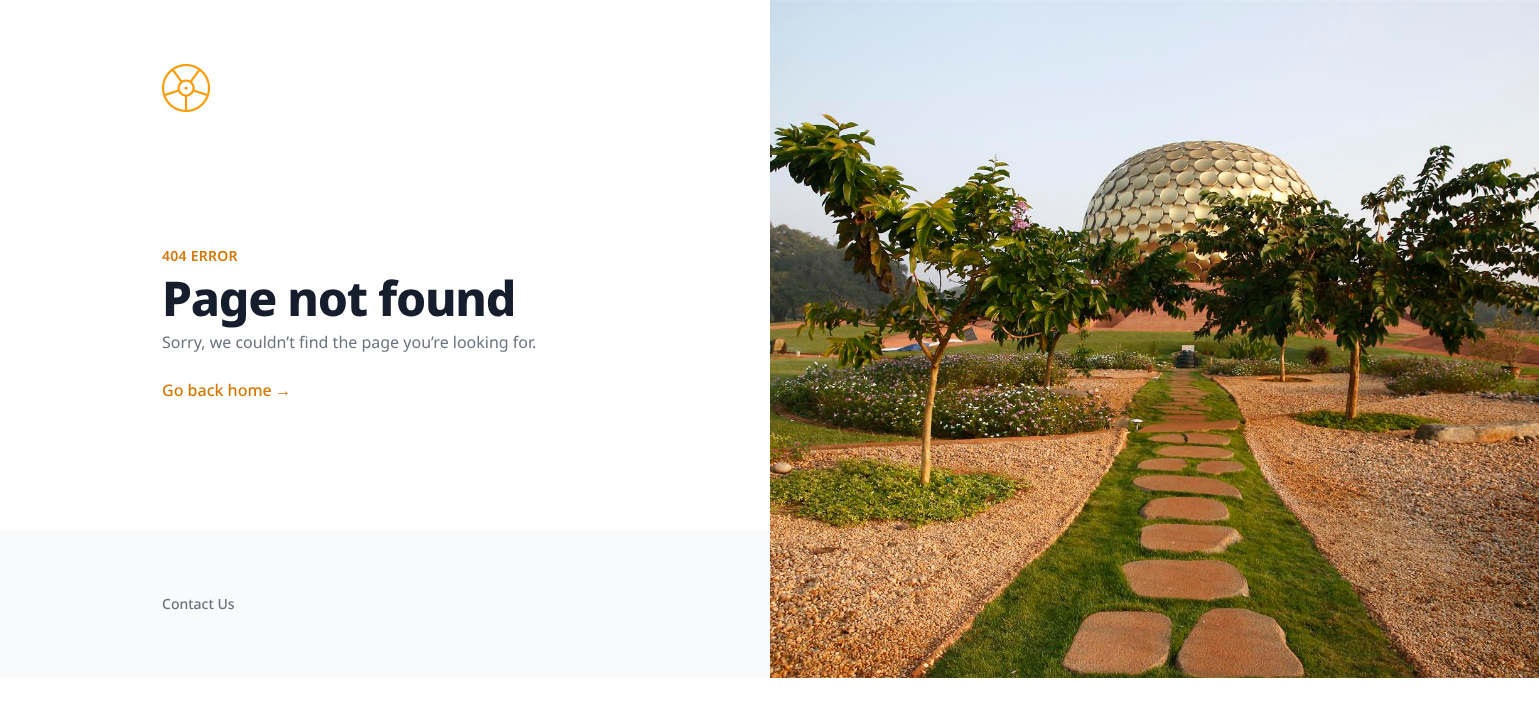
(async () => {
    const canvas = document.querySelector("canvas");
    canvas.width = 1539;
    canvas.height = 724;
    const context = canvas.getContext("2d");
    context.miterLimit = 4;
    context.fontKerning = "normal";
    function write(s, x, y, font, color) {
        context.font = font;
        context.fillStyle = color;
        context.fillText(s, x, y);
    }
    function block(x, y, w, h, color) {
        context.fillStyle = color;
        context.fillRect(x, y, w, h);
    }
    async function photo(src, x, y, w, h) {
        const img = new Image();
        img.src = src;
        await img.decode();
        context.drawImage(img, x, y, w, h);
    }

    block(0, 0, 1539, 724, "rgb(255, 255, 255)");
    await photo("media/1.png", 162, 64, 48, 48);
    context.letterSpacing = "0.25px";
    write("404 ERROR", 162, 261, "600 14px Noto Sans", "rgb(217, 119, 5)");
    context.letterSpacing = "-1.25px";
    write("Page not found", 162, 316, "800 48px Noto Sans", "rgb(22, 30, 46)");
    context.letterSpacing = "0px";
    write("Sorry, we couldn’t find the page you’re looking for.", 162, 348, "16px Noto Sans", "rgb(107, 114, 128)");
    write("Go back home", 162, 396, "500 16px Noto Sans", "rgb(217, 119, 5)");
    write("→", 275, 396, "16px Liberation Sans", "rgb(217, 119, 5)");
    block(0, 530, 770, 148, "rgb(249, 250, 251)");
    write("Contact Us", 162, 609, "500 14px Noto Sans", "rgb(107, 114, 128)");
    await photo("media/2.png", 770, 0, 769, 678);
})();
